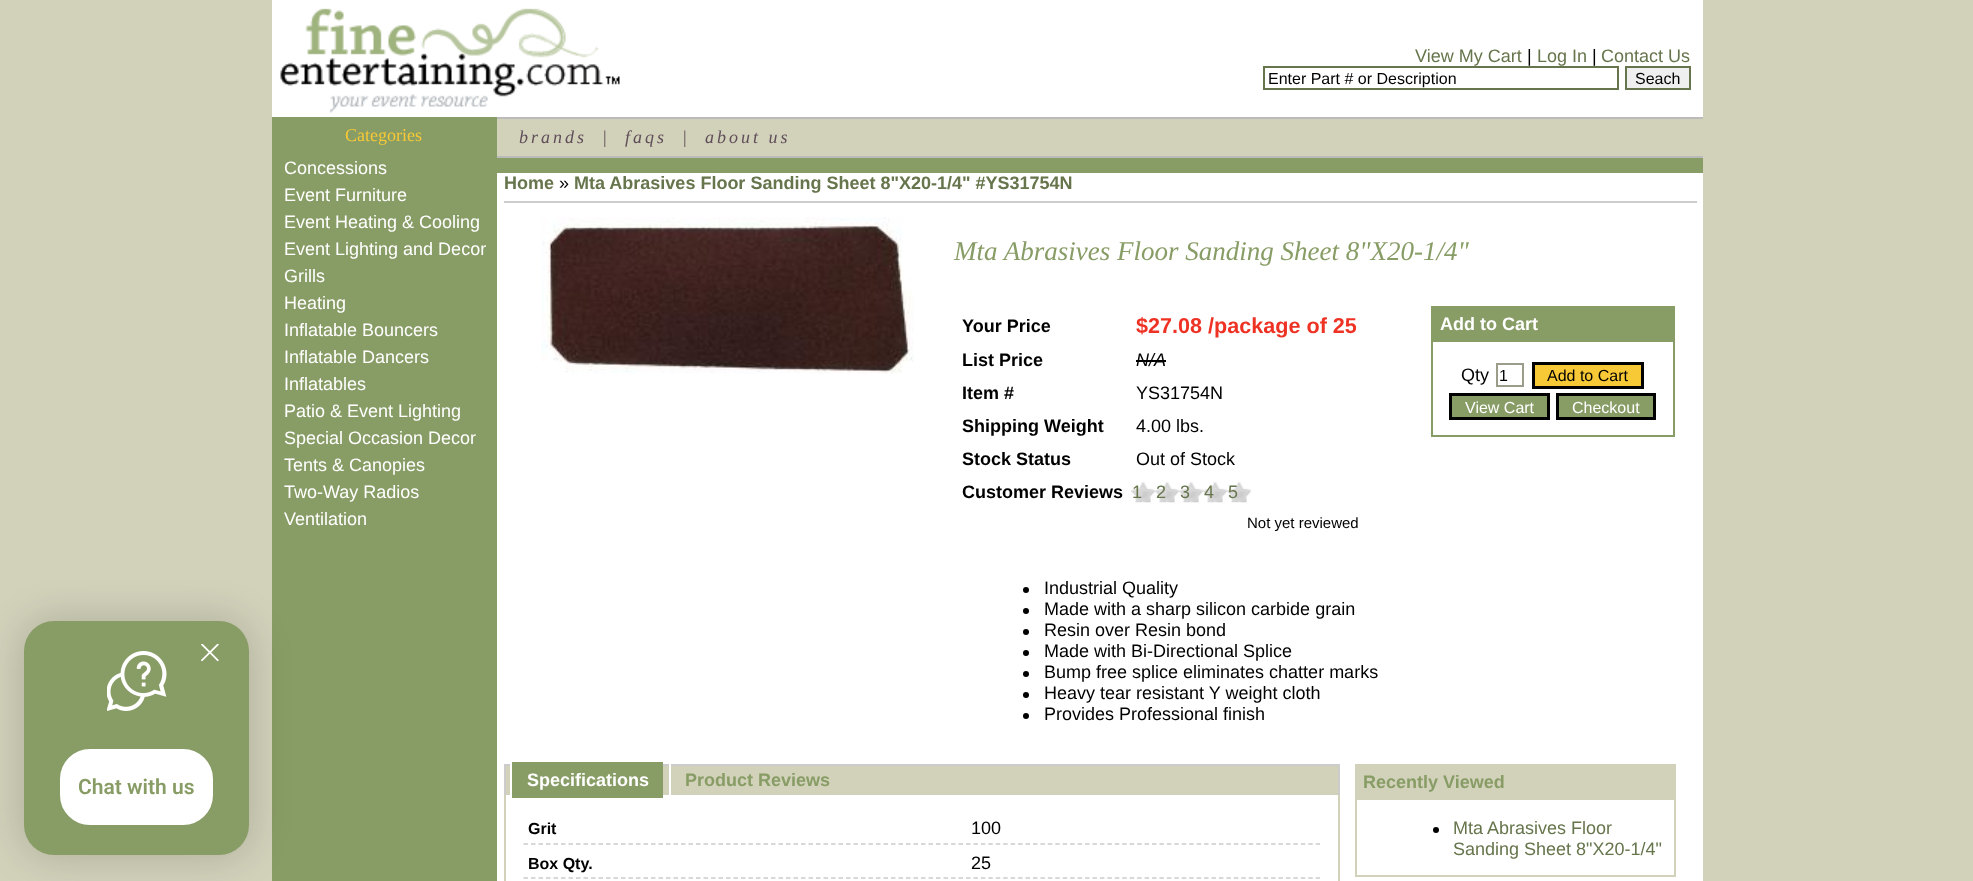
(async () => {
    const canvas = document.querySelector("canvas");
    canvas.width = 1973;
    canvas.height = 881;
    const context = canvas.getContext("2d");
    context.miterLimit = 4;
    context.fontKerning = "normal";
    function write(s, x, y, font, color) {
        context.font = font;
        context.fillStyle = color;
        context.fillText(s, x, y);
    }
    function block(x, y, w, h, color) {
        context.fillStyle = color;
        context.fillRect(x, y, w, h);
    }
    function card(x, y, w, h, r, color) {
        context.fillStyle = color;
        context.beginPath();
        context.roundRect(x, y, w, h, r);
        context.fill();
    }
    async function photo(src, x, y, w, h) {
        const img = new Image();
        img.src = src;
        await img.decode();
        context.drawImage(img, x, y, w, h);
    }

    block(0, 0, 1973, 881, "rgb(210, 210, 187)");
    block(272, 0, 1431, 117, "rgb(255, 255, 255)");
    await photo("media/1.png", 280, 8, 340, 105);
    write("View My Cart", 1415, 62, "18px Liberation Sans", "rgb(102, 117, 76)");
    write("|", 1527, 62, "18px Liberation Sans", "rgb(0, 0, 0)");
    write("Log In", 1537, 62, "18px Liberation Sans", "rgb(102, 117, 76)");
    write("|", 1592, 62, "18px Liberation Sans", "rgb(0, 0, 0)");
    write("Contact Us", 1601, 62, "18px Liberation Sans", "rgb(102, 117, 76)");
    context.strokeStyle = "rgb(102, 117, 76)";
    context.lineWidth = 2;
    context.strokeRect(1264, 67, 354, 22);
    write("Enter Part # or Description", 1268, 84, "16px Liberation Sans", "rgb(0, 0, 0)");
    context.fillStyle = "rgb(239, 239, 239)";
    context.beginPath();
    context.rect(1626, 67, 64, 22);
    context.fill();
    context.stroke();
    write("Seach", 1635, 84, "16px Liberation Sans", "rgb(0, 0, 0)");
    block(272, 117, 1431, 764, "rgb(136, 156, 101)");
    context.fillStyle = "rgba(0, 0, 0, 0.19)";
    context.filter = "blur(20px)";
    context.beginPath();
    context.roundRect(24, 621, 225, 234, 30);
    context.fill();
    context.filter = "none";
    card(24, 621, 225, 234, 30, "rgb(136, 156, 101)");
    await photo("media/2.png", 107, 651, 60, 60);
    await photo("media/3.png", 201, 644, 18, 18);
    context.fillStyle = "rgb(255, 255, 255)";
    context.beginPath();
    context.roundRect(61.5, 750.5, 150, 73, 28.5);
    context.fill();
    context.strokeStyle = "rgb(255, 255, 255)";
    context.lineWidth = 3;
    context.stroke();
    write("Chat with us", 78, 794, "600 21px Roboto", "rgb(136, 156, 101)");
    write("Categories", 345, 141, "18px Liberation Serif", "rgb(247, 201, 54)");
    write("Concessions", 284, 174, "18px Liberation Sans", "rgb(255, 255, 255)");
    write("Event Furniture", 284, 201, "18px Liberation Sans", "rgb(255, 255, 255)");
    write("Event Heating & Cooling", 284, 228, "18px Liberation Sans", "rgb(255, 255, 255)");
    write("Event Lighting and Decor", 284, 255, "18px Liberation Sans", "rgb(255, 255, 255)");
    write("Grills", 284, 282, "18px Liberation Sans", "rgb(255, 255, 255)");
    write("Heating", 284, 309, "18px Liberation Sans", "rgb(255, 255, 255)");
    write("Inflatable Bouncers", 284, 336, "18px Liberation Sans", "rgb(255, 255, 255)");
    write("Inflatable Dancers", 284, 363, "18px Liberation Sans", "rgb(255, 255, 255)");
    write("Inflatables", 284, 390, "18px Liberation Sans", "rgb(255, 255, 255)");
    write("Patio & Event Lighting", 284, 417, "18px Liberation Sans", "rgb(255, 255, 255)");
    write("Special Occasion Decor", 284, 444, "18px Liberation Sans", "rgb(255, 255, 255)");
    write("Tents & Canopies", 284, 471, "18px Liberation Sans", "rgb(255, 255, 255)");
    write("Two-Way Radios", 284, 498, "18px Liberation Sans", "rgb(255, 255, 255)");
    write("Ventilation", 284, 525, "18px Liberation Sans", "rgb(255, 255, 255)");
    block(497, 119, 1206, 37, "rgb(210, 210, 187)");
    block(497, 117, 1206, 2, "rgb(187, 187, 187)");
    block(497, 156, 1206, 2, "rgb(187, 187, 187)");
    context.letterSpacing = "3px";
    write("brands", 519, 143, "italic 18px Liberation Serif", "rgb(96, 78, 89)");
    write("|", 602, 143, "italic 18px Liberation Serif", "rgb(96, 78, 89)");
    write("faqs", 625, 143, "italic 18px Liberation Serif", "rgb(96, 78, 89)");
    write("|", 682, 143, "italic 18px Liberation Serif", "rgb(96, 78, 89)");
    write("about us", 705, 143, "italic 18px Liberation Serif", "rgb(96, 78, 89)");
    block(497, 173, 1206, 708, "rgb(255, 255, 255)");
    block(504, 201, 1193, 2, "rgb(204, 204, 204)");
    context.letterSpacing = "0px";
    write("Home", 504, 189, "bold 18px Liberation Sans", "rgb(102, 117, 76)");
    write("»", 559, 189, "18px Liberation Sans", "rgb(0, 0, 0)");
    write("Mta Abrasives Floor Sanding Sheet 8\"X20-1/4\" #YS31754N", 574, 189, "bold 18px Liberation Sans", "rgb(102, 117, 76)");
    await photo("media/4.png", 541, 217, 373, 157);
    write("Mta Abrasives Floor Sanding Sheet 8\"X20-1/4\"", 954, 260, "italic 27px Liberation Serif", "rgb(136, 156, 101)");
    write("Your Price", 962, 332, "bold 18px Liberation Sans", "rgb(0, 0, 0)");
    write("$27.08 /package of 25", 1136, 333, "bold 21.6px Liberation Sans", "rgb(238, 50, 36)");
    write("List Price", 962, 366, "bold 18px Liberation Sans", "rgb(0, 0, 0)");
    write("N/A", 1136, 366, "italic 18px Liberation Sans", "rgb(0, 0, 0)");
    block(1136, 360, 30, 2, "rgb(0, 0, 0)");
    write("Item #", 962, 399, "bold 18px Liberation Sans", "rgb(0, 0, 0)");
    write("YS31754N", 1136, 399, "18px Liberation Sans", "rgb(0, 0, 0)");
    write("Shipping Weight", 962, 432, "bold 18px Liberation Sans", "rgb(0, 0, 0)");
    write("4.00 lbs.", 1136, 432, "18px Liberation Sans", "rgb(0, 0, 0)");
    write("Stock Status", 962, 465, "bold 18px Liberation Sans", "rgb(0, 0, 0)");
    write("Out of Stock", 1136, 465, "18px Liberation Sans", "rgb(0, 0, 0)");
    write("Customer Reviews", 962, 498, "bold 18px Liberation Sans", "rgb(0, 0, 0)");
    await photo("media/5.png", 1131, 481, 24, 22);
    write("1", 1132, 498, "18px Liberation Sans", "rgb(102, 117, 76)");
    await photo("media/5.png", 1155, 481, 24, 22);
    write("2", 1156, 498, "18px Liberation Sans", "rgb(102, 117, 76)");
    await photo("media/5.png", 1179, 481, 24, 22);
    write("3", 1180, 498, "18px Liberation Sans", "rgb(102, 117, 76)");
    await photo("media/5.png", 1203, 481, 24, 22);
    write("4", 1204, 498, "18px Liberation Sans", "rgb(102, 117, 76)");
    await photo("media/5.png", 1227, 481, 24, 22);
    write("5", 1228, 498, "18px Liberation Sans", "rgb(102, 117, 76)");
    write("Not yet reviewed", 1247, 528, "15px Liberation Sans", "rgb(0, 0, 0)");
    block(1673, 306, 2, 131, "rgb(136, 156, 101)");
    block(1431, 435, 243, 2, "rgb(136, 156, 101)");
    block(1431, 306, 2, 131, "rgb(136, 156, 101)");
    block(1433, 306, 240, 36, "rgb(136, 156, 101)");
    write("Add to Cart", 1440, 330, "bold 18px Liberation Sans", "rgb(255, 255, 255)");
    write("Qty", 1461, 381, "18px Liberation Sans", "rgb(0, 0, 0)");
    context.strokeStyle = "rgb(156, 156, 138)";
    context.lineWidth = 2;
    context.strokeRect(1497, 364, 26, 22);
    write("1", 1499, 381, "16px Liberation Sans", "rgb(0, 0, 0)");
    context.fillStyle = "rgb(247, 201, 54)";
    context.beginPath();
    context.rect(1533.5, 363.5, 109, 24);
    context.fill();
    context.strokeStyle = "rgb(0, 0, 0)";
    context.lineWidth = 3;
    context.stroke();
    write("Add to Cart", 1547, 381, "16px Liberation Sans", "rgb(0, 0, 0)");
    context.fillStyle = "rgb(136, 156, 101)";
    context.beginPath();
    context.rect(1450.5, 394.5, 98, 24);
    context.fill();
    context.stroke();
    write("View Cart", 1465, 413, "16px Liberation Sans", "rgb(255, 255, 255)");
    context.fillStyle = "rgb(136, 156, 101)";
    context.beginPath();
    context.rect(1557.5, 394.5, 97, 24);
    context.fill();
    context.stroke();
    write("Checkout", 1572, 413, "16px Liberation Sans", "rgb(255, 255, 255)");
    context.fillStyle = "rgb(0, 0, 0)";
    context.beginPath();
    context.arc(1026, 590, 3, 0, Math.PI * 2);
    context.fill();
    write("Industrial Quality", 1044, 594, "18px Liberation Sans", "rgb(0, 0, 0)");
    context.beginPath();
    context.arc(1026, 611, 3, 0, Math.PI * 2);
    context.fill();
    write("Made with a sharp silicon carbide grain", 1044, 615, "18px Liberation Sans", "rgb(0, 0, 0)");
    context.beginPath();
    context.arc(1026, 632, 3, 0, Math.PI * 2);
    context.fill();
    write("Resin over Resin bond", 1044, 636, "18px Liberation Sans", "rgb(0, 0, 0)");
    context.beginPath();
    context.arc(1026, 653, 3, 0, Math.PI * 2);
    context.fill();
    write("Made with Bi-Directional Splice", 1044, 657, "18px Liberation Sans", "rgb(0, 0, 0)");
    context.beginPath();
    context.arc(1026, 674, 3, 0, Math.PI * 2);
    context.fill();
    write("Bump free splice eliminates chatter marks", 1044, 678, "18px Liberation Sans", "rgb(0, 0, 0)");
    context.beginPath();
    context.arc(1026, 695, 3, 0, Math.PI * 2);
    context.fill();
    write("Heavy tear resistant Y weight cloth", 1044, 699, "18px Liberation Sans", "rgb(0, 0, 0)");
    context.beginPath();
    context.arc(1026, 716, 3, 0, Math.PI * 2);
    context.fill();
    write("Provides Professional finish", 1044, 720, "18px Liberation Sans", "rgb(0, 0, 0)");
    block(506, 766, 832, 29, "rgb(210, 210, 187)");
    block(504, 764, 836, 2, "rgb(204, 204, 204)");
    block(1338, 764, 2, 31, "rgb(204, 204, 204)");
    block(504, 764, 2, 31, "rgb(204, 204, 204)");
    block(512, 762, 151, 36, "rgb(136, 156, 101)");
    write("Specifications", 527, 786, "bold 18px Liberation Sans", "rgb(255, 255, 255)");
    block(510, 762, 2, 36, "rgb(255, 255, 255)");
    write("Product Reviews", 685, 786, "bold 18px Liberation Sans", "rgb(136, 156, 101)");
    block(669, 762, 2, 36, "rgb(255, 255, 255)");
    block(1338, 795, 2, 86, "rgb(210, 210, 187)");
    block(504, 795, 2, 86, "rgb(210, 210, 187)");
    context.beginPath();
    context.moveTo(523.5, 844);
    context.lineTo(963, 844);
    context.strokeStyle = "rgb(204, 204, 204)";
    context.lineWidth = 1.5;
    context.setLineDash([4.5, 3]);
    context.stroke();
    write("Grit", 528, 834, "bold 16px Liberation Sans", "rgb(0, 0, 0)");
    context.beginPath();
    context.moveTo(966, 844);
    context.lineTo(1320, 844);
    context.setLineDash([4.5, 2.94]);
    context.stroke();
    write("100", 971, 834, "18px Liberation Sans", "rgb(0, 0, 0)");
    context.beginPath();
    context.moveTo(523.5, 878);
    context.lineTo(963, 878);
    context.setLineDash([4.5, 3]);
    context.stroke();
    write("Box Qty.", 528, 869, "bold 16px Liberation Sans", "rgb(0, 0, 0)");
    context.beginPath();
    context.moveTo(966, 878);
    context.lineTo(1320, 878);
    context.setLineDash([4.5, 2.94]);
    context.stroke();
    write("25", 971, 869, "18px Liberation Sans", "rgb(0, 0, 0)");
    block(1674, 764, 2, 112, "rgb(210, 210, 187)");
    block(1355, 875, 321, 2, "rgb(210, 210, 187)");
    block(1355, 764, 2, 112, "rgb(210, 210, 187)");
    block(1357, 764, 317, 36, "rgb(210, 210, 187)");
    write("Recently Viewed", 1363, 788, "bold 18px Liberation Sans", "rgb(136, 156, 101)");
    context.fillStyle = "rgb(0, 0, 0)";
    context.beginPath();
    context.arc(1436, 830, 3, 0, Math.PI * 2);
    context.fill();
    write("Mta Abrasives Floor", 1453, 834, "18px Liberation Sans", "rgb(102, 117, 76)");
    write("Sanding Sheet 8\"X20-1/4\"", 1453, 855, "18px Liberation Sans", "rgb(102, 117, 76)");
})();
